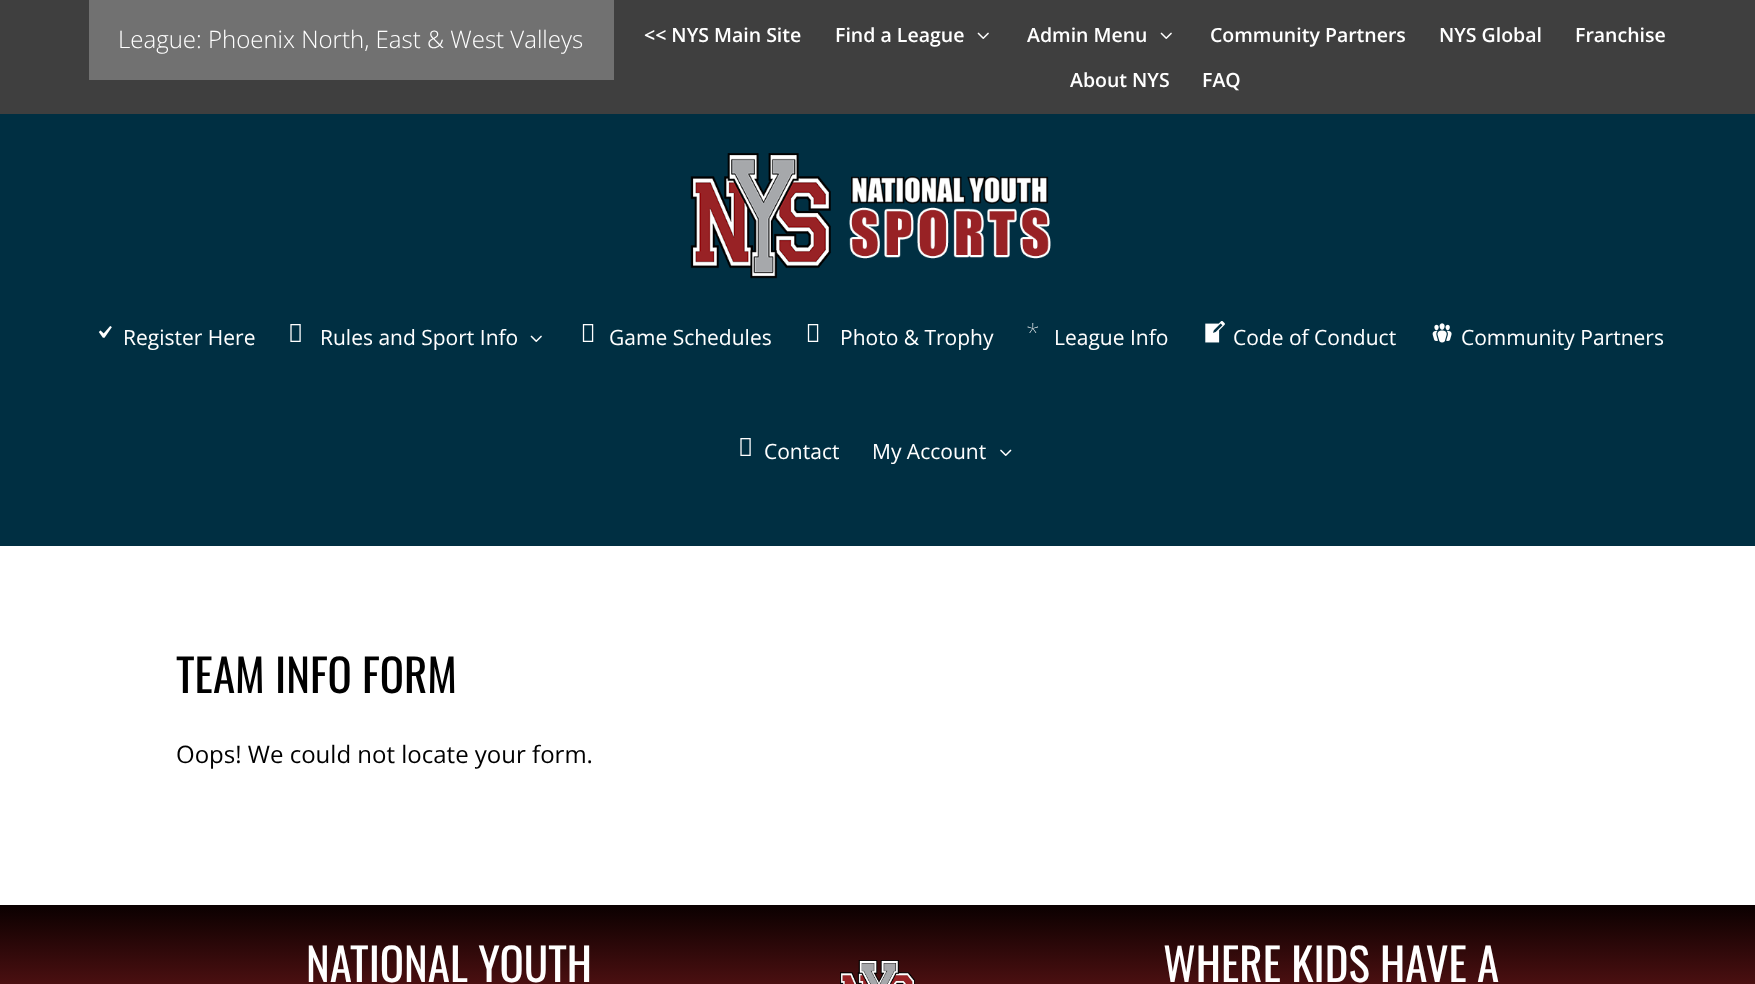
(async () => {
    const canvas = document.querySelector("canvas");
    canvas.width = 1755;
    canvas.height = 984;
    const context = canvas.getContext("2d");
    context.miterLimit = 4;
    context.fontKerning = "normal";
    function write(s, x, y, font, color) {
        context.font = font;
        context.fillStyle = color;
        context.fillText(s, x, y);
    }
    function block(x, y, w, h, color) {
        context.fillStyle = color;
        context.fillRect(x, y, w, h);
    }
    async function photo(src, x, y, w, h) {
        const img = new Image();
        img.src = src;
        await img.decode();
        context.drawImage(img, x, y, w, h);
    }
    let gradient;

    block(0, 0, 1755, 984, "rgb(255, 255, 255)");
    block(0, 0, 1755, 114, "rgb(63, 63, 63)");
    block(89, 0, 525, 80, "rgb(113, 113, 113)");
    write("League: Phoenix North, East & West Valleys", 118, 48, "300 24px Open Sans", "rgb(255, 255, 255)");
    write("<< NYS Main Site", 644, 42, "600 19.5px Open Sans", "rgb(255, 255, 255)");
    write("Find a League", 835, 42, "600 19.5px Open Sans", "rgb(255, 255, 255)");
    await photo("media/1.png", 977, 32, 12, 7);
    write("Admin Menu", 1027, 42, "600 19.5px Open Sans", "rgb(255, 255, 255)");
    await photo("media/1.png", 1160, 32, 12, 7);
    write("Community Partners", 1210, 42, "600 19.5px Open Sans", "rgb(255, 255, 255)");
    write("NYS Global", 1439, 42, "600 19.5px Open Sans", "rgb(255, 255, 255)");
    write("Franchise", 1575, 42, "600 19.5px Open Sans", "rgb(255, 255, 255)");
    write("About NYS", 1070, 87, "600 19.5px Open Sans", "rgb(255, 255, 255)");
    write("FAQ", 1202, 87, "600 19.5px Open Sans", "rgb(255, 255, 255)");
    block(0, 114, 1755, 432, "rgb(0, 47, 66)");
    await photo("media/2.png", 690, 153, 361, 126);
    await photo("media/3.png", 98, 326, 14, 12);
    write("Register Here", 123, 345, "21px Open Sans", "rgb(255, 255, 255)");
    await photo("media/4.png", 290, 324, 11, 18);
    write("Rules and Sport Info", 320, 345, "21px Open Sans", "rgb(255, 255, 255)");
    await photo("media/5.png", 530, 335, 12, 7);
    await photo("media/6.png", 582, 324, 12, 18);
    write("Game Schedules", 609, 345, "21px Open Sans", "rgb(255, 255, 255)");
    await photo("media/6.png", 807, 324, 12, 18);
    write("Photo & Trophy", 840, 345, "21px Open Sans", "rgb(255, 255, 255)");
    write("*", 1026, 342, "100 25px Noto Sans", "rgb(255, 255, 255)");
    write("League Info", 1054, 345, "21px Open Sans", "rgb(255, 255, 255)");
    await photo("media/7.png", 1205, 321, 20, 22);
    write("Code of Conduct", 1233, 345, "21px Open Sans", "rgb(255, 255, 255)");
    await photo("media/8.png", 1432, 323, 20, 20);
    write("Community Partners", 1461, 345, "21px Open Sans", "rgb(255, 255, 255)");
    await photo("media/4.png", 740, 438, 11, 18);
    write("Contact", 764, 459, "21px Open Sans", "rgb(255, 255, 255)");
    write("My Account", 872, 459, "21px Open Sans", "rgb(255, 255, 255)");
    await photo("media/9.png", 1000, 449, 12, 7);
    write("TEAM INFO FORM", 176, 693, "45px Oswald", "rgb(0, 0, 0)");
    write("Oops! We could not locate your form.", 176, 763, "24px Open Sans", "rgb(0, 0, 0)");
    gradient = context.createLinearGradient(878, 904, 878, 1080);
    gradient.addColorStop(0, "rgb(10, 0, 0)");
    gradient.addColorStop(1, "rgb(152, 34, 37)");
    context.fillStyle = gradient;
    context.fillRect(0, 905, 1755, 79);
    write("NATIONAL YOUTH", 306, 982, "45px Oswald", "rgb(255, 255, 255)");
    await photo("media/10.png", 840, 960, 75, 24);
    write("WHERE KIDS HAVE A", 1163, 982, "45px Oswald", "rgb(255, 255, 255)");
})();
